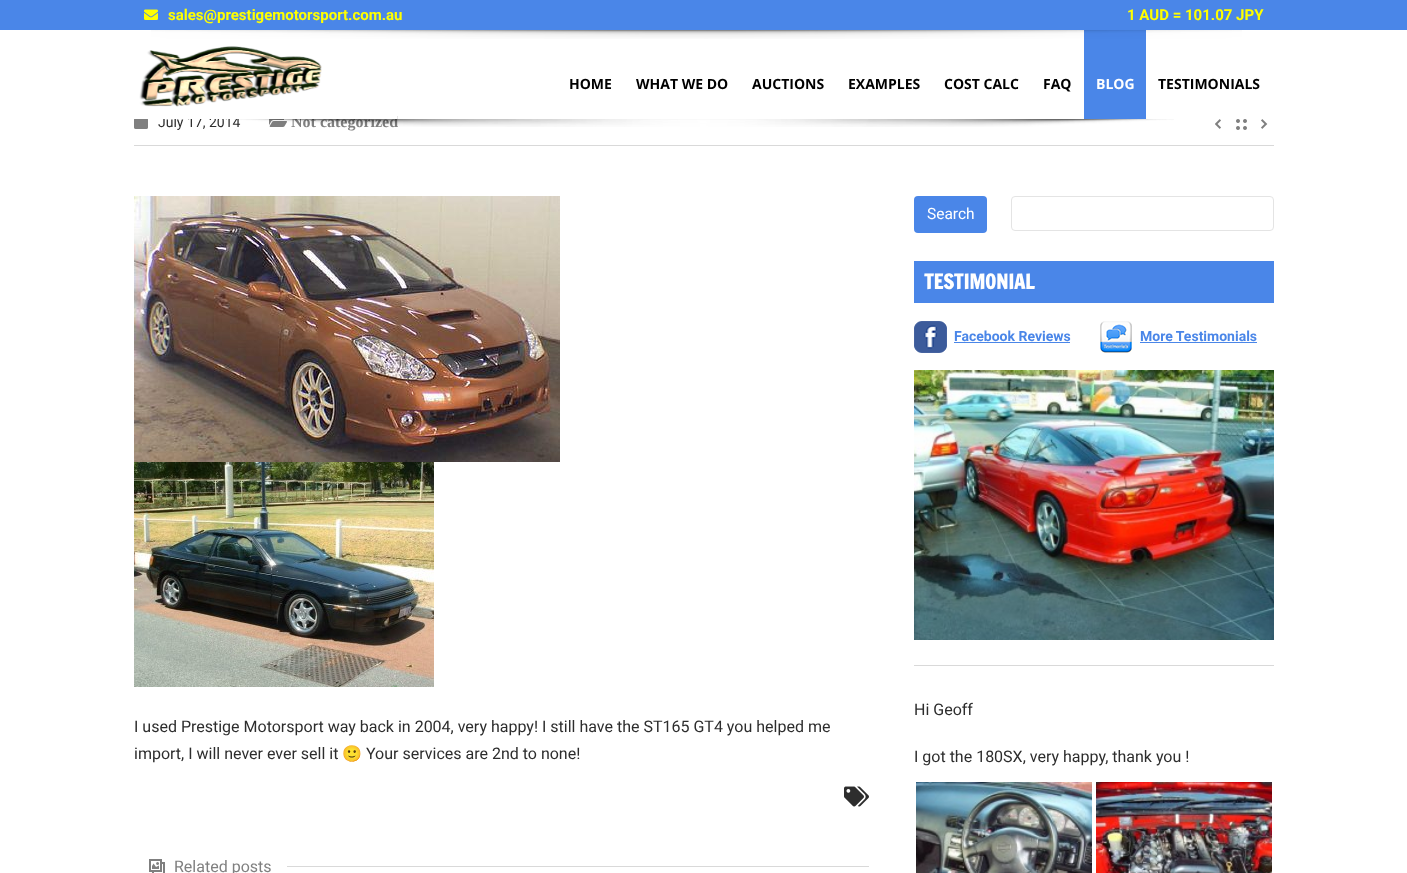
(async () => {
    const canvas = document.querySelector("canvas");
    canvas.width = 1407;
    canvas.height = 873;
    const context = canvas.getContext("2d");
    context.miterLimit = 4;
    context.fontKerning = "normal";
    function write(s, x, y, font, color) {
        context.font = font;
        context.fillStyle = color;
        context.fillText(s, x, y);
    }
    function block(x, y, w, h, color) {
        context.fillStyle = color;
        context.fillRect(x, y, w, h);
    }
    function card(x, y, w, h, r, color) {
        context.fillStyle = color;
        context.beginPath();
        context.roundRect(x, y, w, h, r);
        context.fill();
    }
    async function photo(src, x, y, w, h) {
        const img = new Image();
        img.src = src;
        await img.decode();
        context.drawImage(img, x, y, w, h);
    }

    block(0, 0, 1407, 873, "rgb(255, 255, 255)");
    write("July 17, 2014", 158, 127, "14px Roboto", "rgb(45, 45, 45)");
    write("Not categorized", 291, 127, "bold 16px Liberation Serif", "rgb(128, 128, 128)");
    block(162, 115, 235, 4, "rgb(255, 255, 255)");
    block(0, 0, 1407, 30, "rgb(74, 134, 232)");
    await photo("media/1.png", 144, 9, 14, 11);
    write("sales@prestigemotorsport.com.au", 168, 20, "bold 15px Roboto", "rgb(255, 255, 0)");
    write("1 AUD = 101.07 JPY", 1127, 20, "bold 15px Roboto", "rgb(255, 255, 0)");
    block(1084, 30, 62, 89, "rgb(74, 134, 232)");
    await photo("media/2.png", 151, 30, 1091, 9);
    await photo("media/3.png", 139, 46, 183, 61);
    write("HOME", 569, 89, "bold 14px Open Sans", "rgb(0, 0, 0)");
    write("WHAT WE DO", 636, 89, "bold 14px Open Sans", "rgb(0, 0, 0)");
    write("AUCTIONS", 752, 89, "bold 14px Open Sans", "rgb(0, 0, 0)");
    write("EXAMPLES", 848, 89, "bold 14px Open Sans", "rgb(0, 0, 0)");
    write("COST CALC", 944, 89, "bold 14px Open Sans", "rgb(0, 0, 0)");
    write("FAQ", 1043, 89, "bold 14px Open Sans", "rgb(0, 0, 0)");
    write("BLOG", 1096, 89, "bold 14px Open Sans", "rgb(255, 255, 255)");
    write("TESTIMONIALS", 1158, 89, "bold 14px Open Sans", "rgb(0, 0, 0)");
    await photo("media/6.png", 269, 119, 18, 8);
    await photo("media/4.png", 234, 119, 940, 8);
    await photo("media/5.png", 134, 119, 14, 10);
    await photo("media/7.png", 1215, 119, 6, 10);
    await photo("media/8.png", 1236, 119, 11, 11);
    await photo("media/9.png", 1261, 119, 7, 10);
    block(134, 145, 1140, 1, "rgb(217, 217, 217)");
    card(914, 196, 73, 37, 4, "rgb(74, 134, 232)");
    write("Search", 927, 219, "15.5px Roboto", "rgb(255, 255, 255)");
    context.beginPath();
    context.roundRect(1011.5, 196.5, 262, 34, 3.5);
    context.strokeStyle = "rgb(228, 228, 228)";
    context.stroke();
    block(914, 261, 360, 42, "rgb(74, 134, 232)");
    write("TESTIMONIAL", 924, 289, "bold 20px Francois One", "rgb(255, 255, 255)");
    await photo("media/10.png", 914, 321, 33, 32);
    write("Facebook Reviews", 954, 341, "bold 14px Roboto", "rgb(74, 134, 232)");
    block(954, 342, 116, 1, "rgb(74, 134, 232)");
    await photo("media/11.png", 1100, 321, 32, 32);
    write("More Testimonials", 1140, 341, "bold 14px Roboto", "rgb(74, 134, 232)");
    block(1140, 342, 117, 1, "rgb(74, 134, 232)");
    await photo("media/12.png", 914, 370, 360, 270);
    block(914, 665, 360, 1, "rgb(217, 217, 217)");
    write("Hi Geoff", 914, 715, "16px Roboto", "rgb(45, 45, 45)");
    write("I got the 180SX, very happy, thank you !", 914, 762, "16px Roboto", "rgb(45, 45, 45)");
    await photo("media/13.png", 916, 782, 176, 91);
    await photo("media/14.png", 1096, 782, 176, 91);
    await photo("media/15.png", 134, 196, 426, 266);
    await photo("media/16.png", 134, 462, 300, 225);
    write("I used Prestige Motorsport way back in 2004, very happy! I still have the ST165 GT4 you helped me", 134, 732, "16px Roboto", "rgb(45, 45, 45)");
    write("import, I will never ever sell it", 134, 759, "16px Roboto", "rgb(45, 45, 45)");
    write("🙂", 342, 759, "16px Noto Color Emoji", "rgb(45, 45, 45)");
    write("Your services are 2nd to none!", 366, 759, "16px Roboto", "rgb(45, 45, 45)");
    await photo("media/17.png", 844, 786, 25, 21);
    await photo("media/18.png", 149, 859, 16, 14);
    write("Related posts", 174, 872, "16px Roboto", "rgb(128, 128, 128)");
    block(287, 866, 582, 1, "rgb(217, 217, 217)");
})();
